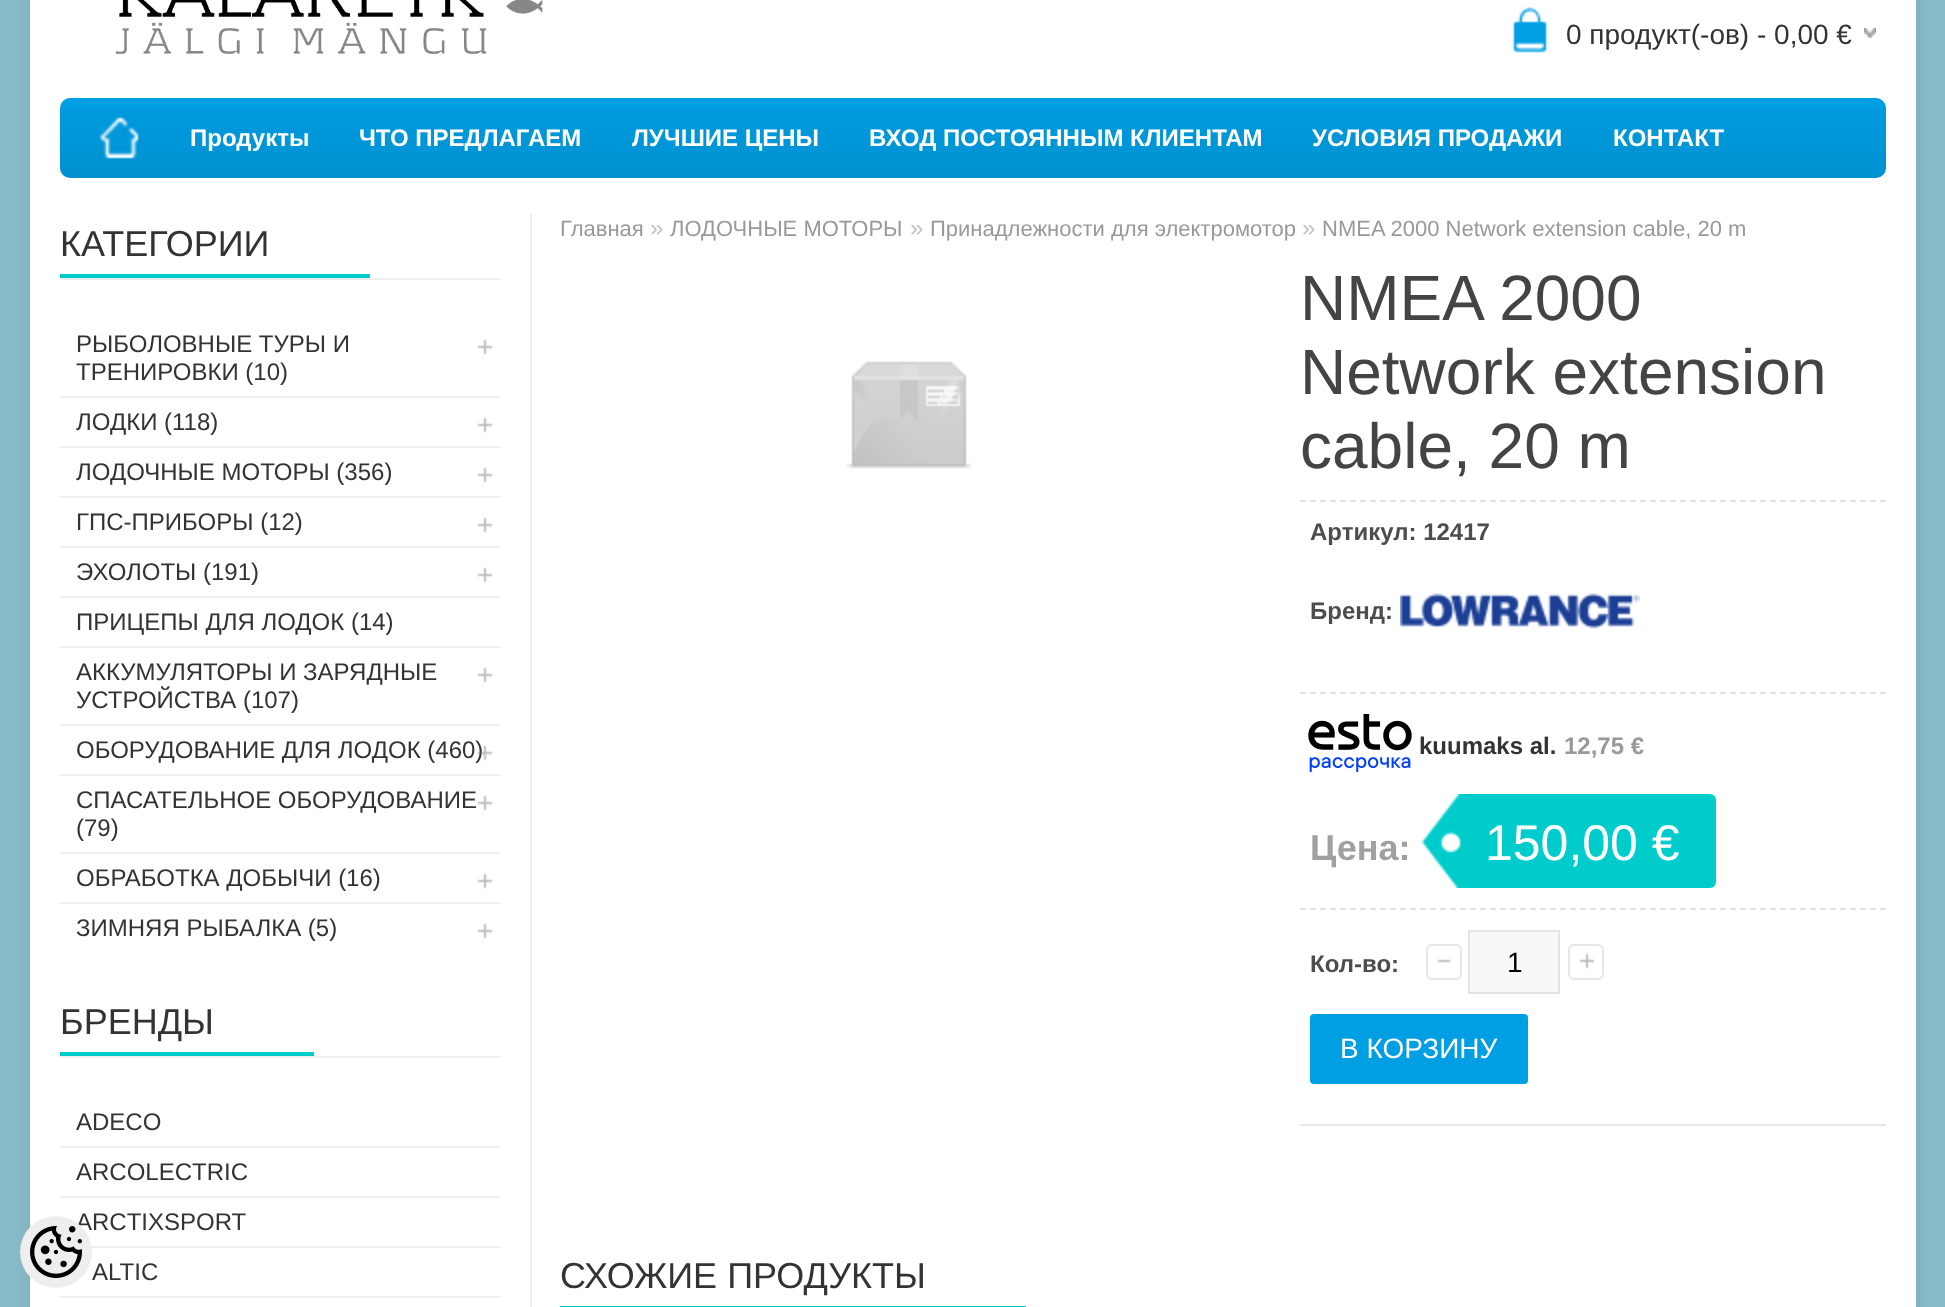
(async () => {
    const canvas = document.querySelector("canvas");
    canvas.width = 1945;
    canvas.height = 1307;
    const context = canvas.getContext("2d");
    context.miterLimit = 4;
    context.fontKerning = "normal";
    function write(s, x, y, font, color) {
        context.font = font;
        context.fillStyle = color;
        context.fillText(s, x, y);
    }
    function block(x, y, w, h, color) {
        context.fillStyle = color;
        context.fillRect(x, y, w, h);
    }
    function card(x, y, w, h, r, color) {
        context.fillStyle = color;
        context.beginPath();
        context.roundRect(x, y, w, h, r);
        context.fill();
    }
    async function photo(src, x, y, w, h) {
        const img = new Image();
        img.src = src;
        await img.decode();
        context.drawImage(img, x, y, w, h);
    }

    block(0, 0, 1945, 1307, "rgb(135, 187, 199)");
    context.fillStyle = "rgba(0, 0, 0, 0.08)";
    context.filter = "blur(8px)";
    context.beginPath();
    context.roundRect(30, -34, 1886, 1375, 10);
    context.fill();
    context.filter = "none";
    block(30, 0, 1886, 1307, "rgb(255, 255, 255)");
    write("ARCTIXSPORT", 76, 1230, "24px Liberation Sans", "rgb(51, 51, 51)");
    block(91, 1246, 409, 2, "rgb(238, 238, 238)");
    context.beginPath();
    context.arc(56, 1252, 36, 0, Math.PI * 2);
    context.fill();
    await photo("media/1.png", 30, 1226, 52, 52);
    await photo("media/2.png", 115, 0, 428, 55);
    block(1511, 7, 38, 46, "rgb(0, 158, 227)");
    await photo("media/3.png", 1498, 0, 64, 64);
    await photo("media/4.png", 1864, 28, 12, 10);
    write("0 продукт(-ов) - 0,00 €", 1566, 44, "28px Liberation Sans", "rgb(51, 51, 51)");
    card(60, 98, 1826, 80, 10, "rgb(0, 158, 227)");
    await photo("media/5.png", 60, 108, 1826, 70);
    await photo("media/6.png", 99, 117, 40, 42);
    write("Продукты", 190, 146, "bold 24px Liberation Sans", "rgb(255, 255, 255)");
    write("ЧТО ПРЕДЛАГАЕМ", 359, 146, "bold 24px Liberation Sans", "rgb(255, 255, 255)");
    write("ЛУЧШИЕ ЦЕНЫ", 632, 146, "bold 24px Liberation Sans", "rgb(255, 255, 255)");
    write("ВХОД ПОСТОЯННЫМ КЛИЕНТАМ", 869, 146, "bold 24px Liberation Sans", "rgb(255, 255, 255)");
    write("УСЛОВИЯ ПРОДАЖИ", 1312, 146, "bold 24px Liberation Sans", "rgb(255, 255, 255)");
    write("КОНТАКТ", 1613, 146, "bold 24px Liberation Sans", "rgb(255, 255, 255)");
    block(530, 214, 2, 1093, "rgb(238, 238, 238)");
    block(60, 278, 440, 2, "rgb(238, 238, 238)");
    block(60, 274, 310, 4, "rgb(0, 204, 204)");
    write("КАТЕГОРИИ", 60, 256, "36px Liberation Sans", "rgb(51, 51, 51)");
    write("РЫБОЛОВНЫЕ ТУРЫ И", 76, 352, "24px Liberation Sans", "rgb(51, 51, 51)");
    write("ТРЕНИРОВКИ (10)", 76, 380, "24px Liberation Sans", "rgb(51, 51, 51)");
    await photo("media/7.png", 477, 339, 16, 16);
    block(60, 396, 440, 2, "rgb(238, 238, 238)");
    write("ЛОДКИ (118)", 76, 430, "24px Liberation Sans", "rgb(51, 51, 51)");
    await photo("media/7.png", 477, 417, 16, 16);
    block(60, 446, 440, 2, "rgb(238, 238, 238)");
    write("ЛОДОЧНЫЕ МОТОРЫ (356)", 76, 480, "24px Liberation Sans", "rgb(51, 51, 51)");
    await photo("media/7.png", 477, 467, 16, 16);
    block(60, 496, 440, 2, "rgb(238, 238, 238)");
    write("ГПС-ПРИБОРЫ (12)", 76, 530, "24px Liberation Sans", "rgb(51, 51, 51)");
    await photo("media/7.png", 477, 517, 16, 16);
    block(60, 546, 440, 2, "rgb(238, 238, 238)");
    write("ЭХОЛОТЫ (191)", 76, 580, "24px Liberation Sans", "rgb(51, 51, 51)");
    await photo("media/7.png", 477, 567, 16, 16);
    block(60, 596, 440, 2, "rgb(238, 238, 238)");
    write("ПРИЦЕПЫ ДЛЯ ЛОДОК (14)", 76, 630, "24px Liberation Sans", "rgb(51, 51, 51)");
    block(60, 646, 440, 2, "rgb(238, 238, 238)");
    write("АККУМУЛЯТОРЫ И ЗАРЯДНЫЕ", 76, 680, "24px Liberation Sans", "rgb(51, 51, 51)");
    write("УСТРОЙСТВА (107)", 76, 708, "24px Liberation Sans", "rgb(51, 51, 51)");
    await photo("media/7.png", 477, 667, 16, 16);
    block(60, 724, 440, 2, "rgb(238, 238, 238)");
    write("ОБОРУДОВАНИЕ ДЛЯ ЛОДОК (460)", 76, 758, "24px Liberation Sans", "rgb(51, 51, 51)");
    await photo("media/8.png", 477, 745, 16, 16);
    block(60, 774, 440, 2, "rgb(238, 238, 238)");
    write("СПАСАТЕЛЬНОЕ ОБОРУДОВАНИЕ", 76, 808, "24px Liberation Sans", "rgb(51, 51, 51)");
    write("(79)", 76, 836, "24px Liberation Sans", "rgb(51, 51, 51)");
    await photo("media/7.png", 477, 795, 16, 16);
    block(60, 852, 440, 2, "rgb(238, 238, 238)");
    write("ОБРАБОТКА ДОБЫЧИ (16)", 76, 886, "24px Liberation Sans", "rgb(51, 51, 51)");
    await photo("media/7.png", 477, 873, 16, 16);
    block(60, 902, 440, 2, "rgb(238, 238, 238)");
    write("ЗИМНЯЯ РЫБАЛКА (5)", 76, 936, "24px Liberation Sans", "rgb(51, 51, 51)");
    await photo("media/7.png", 477, 923, 16, 16);
    block(60, 1056, 440, 2, "rgb(238, 238, 238)");
    block(60, 1052, 254, 4, "rgb(0, 204, 204)");
    write("БРЕНДЫ", 60, 1034, "36px Liberation Sans", "rgb(51, 51, 51)");
    write("ADECO", 76, 1130, "24px Liberation Sans", "rgb(51, 51, 51)");
    block(60, 1146, 440, 2, "rgb(238, 238, 238)");
    write("ARCOLECTRIC", 76, 1180, "24px Liberation Sans", "rgb(51, 51, 51)");
    block(60, 1196, 440, 2, "rgb(238, 238, 238)");
    write("ALTIC", 92, 1280, "24px Liberation Sans", "rgb(51, 51, 51)");
    block(60, 1296, 440, 2, "rgb(238, 238, 238)");
    write("Главная", 560, 236, "22px Liberation Sans", "rgb(153, 153, 153)");
    write("»", 650, 236, "24px Liberation Sans", "rgb(194, 194, 194)");
    write("ЛОДОЧНЫЕ МОТОРЫ", 670, 236, "22px Liberation Sans", "rgb(153, 153, 153)");
    write("»", 910, 236, "24px Liberation Sans", "rgb(194, 194, 194)");
    write("Принадлежности для электромотор", 930, 236, "22px Liberation Sans", "rgb(153, 153, 153)");
    write("»", 1302, 236, "24px Liberation Sans", "rgb(194, 194, 194)");
    write("NMEA 2000 Network extension cable, 20 m", 1322, 236, "22px Liberation Sans", "rgb(153, 153, 153)");
    await photo("media/9.png", 846, 361, 126, 108);
    write("NMEA 2000", 1300, 320, "64px Liberation Sans", "rgb(68, 68, 68)");
    write("Network extension", 1300, 394, "64px Liberation Sans", "rgb(68, 68, 68)");
    write("cable, 20 m", 1300, 468, "64px Liberation Sans", "rgb(68, 68, 68)");
    context.beginPath();
    context.moveTo(1300, 501);
    context.lineTo(1886, 501);
    context.strokeStyle = "rgb(226, 226, 226)";
    context.lineWidth = 2;
    context.setLineDash([6, 4]);
    context.stroke();
    context.beginPath();
    context.moveTo(1300, 693);
    context.lineTo(1886, 693);
    context.stroke();
    write("Артикул: 12417", 1310, 540, "bold 24px Liberation Sans", "rgb(77, 77, 77)");
    write("Бренд:", 1310, 619, "bold 24px Liberation Sans", "rgb(77, 77, 77)");
    await photo("media/10.png", 1400, 593, 240, 36);
    await photo("media/11.png", 1308, 714, 104, 58);
    write("kuumaks al.", 1419, 754, "bold 24px Liberation Sans", "rgb(51, 51, 51)");
    write("12,75 €", 1564, 754, "bold 24px Liberation Sans", "rgb(153, 153, 153)");
    context.beginPath();
    context.moveTo(1300, 909);
    context.lineTo(1886, 909);
    context.stroke();
    write("Цена:", 1310, 860, "bold 36px Liberation Sans", "rgb(160, 160, 160)");
    context.fillStyle = "rgb(0, 204, 204)";
    context.beginPath();
    context.roundRect(1420, 794, 296, 94, [0, 6, 6, 0]);
    context.fill();
    await photo("media/12.png", 1420, 794, 42, 94);
    write("150,00 €", 1485, 860, "50px Liberation Sans", "rgb(255, 255, 255)");
    block(1300, 1124, 586, 2, "rgb(231, 231, 231)");
    write("Кол-во:", 1310, 972, "bold 24px Liberation Sans", "rgb(77, 77, 77)");
    await photo("media/13.png", 1437, 959, 15, 4);
    context.beginPath();
    context.roundRect(1427, 945, 34, 34, 5);
    context.strokeStyle = "rgb(230, 230, 230)";
    context.setLineDash([]);
    context.stroke();
    context.fillStyle = "rgb(248, 248, 248)";
    context.beginPath();
    context.rect(1469, 931, 90, 62);
    context.fill();
    context.strokeStyle = "rgb(228, 228, 228)";
    context.stroke();
    write("1", 1507, 972, "28px Liberation Sans", "rgb(0, 0, 0)");
    await photo("media/7.png", 1579, 953, 16, 16);
    context.beginPath();
    context.roundRect(1569, 945, 34, 34, 5);
    context.strokeStyle = "rgb(230, 230, 230)";
    context.stroke();
    card(1310, 1014, 218, 70, 4, "rgb(0, 158, 227)");
    write("В КОРЗИНУ", 1340, 1058, "28px Liberation Sans", "rgb(255, 255, 255)");
    block(560, 1306, 466, 1, "rgb(0, 204, 204)");
    write("СХОЖИЕ ПРОДУКТЫ", 560, 1288, "36px Liberation Sans", "rgb(51, 51, 51)");
})();
